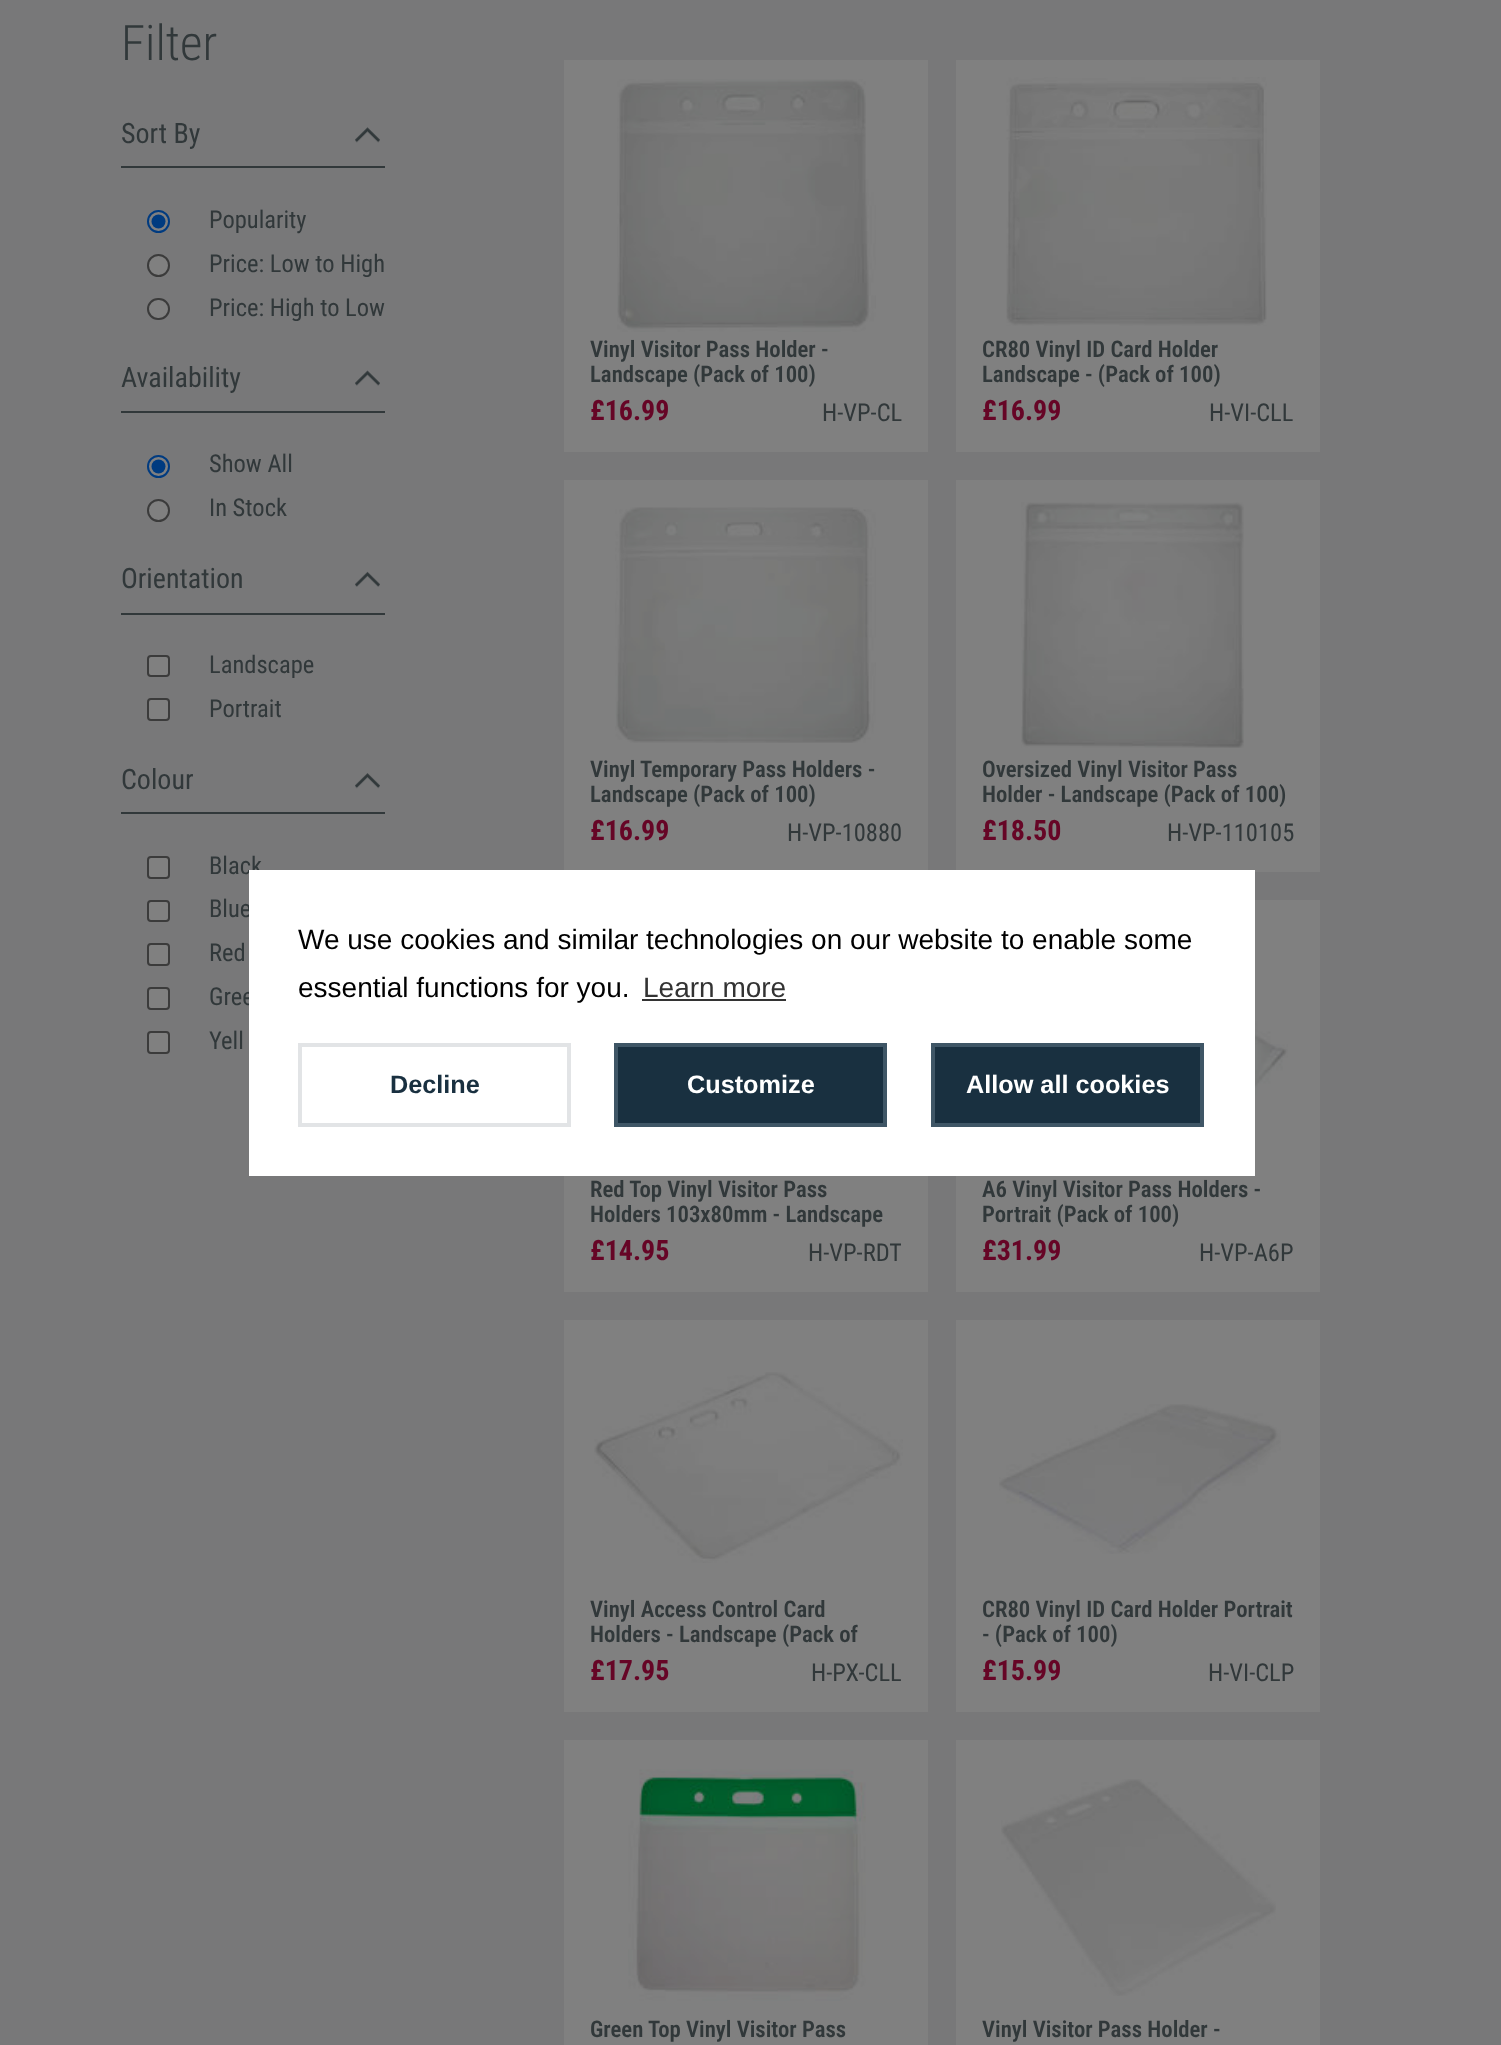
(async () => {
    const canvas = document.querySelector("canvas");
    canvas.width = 1501;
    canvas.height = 2045;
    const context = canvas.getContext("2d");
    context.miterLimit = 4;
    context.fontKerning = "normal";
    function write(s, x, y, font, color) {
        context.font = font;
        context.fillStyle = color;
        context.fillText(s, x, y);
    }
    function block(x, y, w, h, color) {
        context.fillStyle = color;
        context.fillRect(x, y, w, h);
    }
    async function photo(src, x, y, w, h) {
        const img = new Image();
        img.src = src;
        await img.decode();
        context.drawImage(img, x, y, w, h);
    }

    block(0, 0, 1501, 2045, "rgb(120, 120, 121)");
    write("Filter", 121, 60, "300 49px Roboto Condensed", "rgb(49, 56, 58)");
    block(121, 166, 264, 2, "rgb(49, 56, 58)");
    write("Sort By", 121, 143, "28px Roboto Condensed", "rgb(49, 56, 58)");
    await photo("media/1.png", 355, 127, 25, 16);
    context.fillStyle = "rgb(128, 128, 128)";
    context.beginPath();
    context.arc(158.5, 221.5, 10.5, 0, Math.PI * 2);
    context.fill();
    context.strokeStyle = "rgb(0, 59, 128)";
    context.lineWidth = 2;
    context.stroke();
    context.fillStyle = "rgb(0, 59, 128)";
    context.beginPath();
    context.arc(158.5, 221.5, 7, 0, Math.PI * 2);
    context.fill();
    write("Popularity", 209, 228, "24.5px Roboto Condensed", "rgb(49, 56, 58)");
    context.fillStyle = "rgb(128, 128, 128)";
    context.beginPath();
    context.arc(158.5, 265.5, 10.5, 0, Math.PI * 2);
    context.fill();
    context.strokeStyle = "rgb(59, 59, 59)";
    context.stroke();
    write("Price: Low to High", 209, 272, "24.5px Roboto Condensed", "rgb(49, 56, 58)");
    context.fillStyle = "rgb(128, 128, 128)";
    context.beginPath();
    context.roundRect(148, 299, 21, 20, 10);
    context.fill();
    context.stroke();
    write("Price: High to Low", 209, 316, "24.5px Roboto Condensed", "rgb(49, 56, 58)");
    block(121, 411, 264, 2, "rgb(49, 56, 58)");
    write("Availability", 121, 387, "28px Roboto Condensed", "rgb(49, 56, 58)");
    await photo("media/2.png", 355, 370, 25, 16);
    context.fillStyle = "rgb(128, 128, 128)";
    context.beginPath();
    context.arc(158.5, 466.5, 10.5, 0, Math.PI * 2);
    context.fill();
    context.strokeStyle = "rgb(0, 59, 128)";
    context.stroke();
    context.fillStyle = "rgb(0, 59, 128)";
    context.beginPath();
    context.arc(158.5, 466.5, 7, 0, Math.PI * 2);
    context.fill();
    write("Show All", 209, 472, "24.5px Roboto Condensed", "rgb(49, 56, 58)");
    context.fillStyle = "rgb(128, 128, 128)";
    context.beginPath();
    context.arc(158.5, 510.5, 10.5, 0, Math.PI * 2);
    context.fill();
    context.strokeStyle = "rgb(59, 59, 59)";
    context.stroke();
    write("In Stock", 209, 516, "24.5px Roboto Condensed", "rgb(49, 56, 58)");
    block(121, 613, 264, 2, "rgb(49, 56, 58)");
    write("Orientation", 121, 588, "28px Roboto Condensed", "rgb(49, 56, 58)");
    await photo("media/3.png", 355, 571, 25, 16);
    context.fillStyle = "rgb(128, 128, 128)";
    context.beginPath();
    context.roundRect(148, 656, 21, 20, 3);
    context.fill();
    context.stroke();
    write("Landscape", 209, 673, "24.5px Roboto Condensed", "rgb(49, 56, 58)");
    context.fillStyle = "rgb(128, 128, 128)";
    context.beginPath();
    context.roundRect(148, 699, 21, 21, 3);
    context.fill();
    context.stroke();
    write("Portrait", 209, 717, "24.5px Roboto Condensed", "rgb(49, 56, 58)");
    block(121, 812, 264, 2, "rgb(49, 56, 58)");
    write("Colour", 121, 789, "28px Roboto Condensed", "rgb(49, 56, 58)");
    await photo("media/4.png", 355, 773, 25, 16);
    context.fillStyle = "rgb(128, 128, 128)";
    context.beginPath();
    context.roundRect(148, 857, 21, 21, 3);
    context.fill();
    context.stroke();
    write("Black", 209, 874, "24.5px Roboto Condensed", "rgb(49, 56, 58)");
    context.fillStyle = "rgb(128, 128, 128)";
    context.beginPath();
    context.roundRect(148, 901, 21, 20, 3);
    context.fill();
    context.stroke();
    write("Blue", 209, 917, "24.5px Roboto Condensed", "rgb(49, 56, 58)");
    context.fillStyle = "rgb(128, 128, 128)";
    context.beginPath();
    context.roundRect(148, 944, 21, 21, 3);
    context.fill();
    context.stroke();
    write("Red", 209, 961, "24.5px Roboto Condensed", "rgb(49, 56, 58)");
    context.fillStyle = "rgb(128, 128, 128)";
    context.beginPath();
    context.roundRect(148, 988, 21, 21, 3);
    context.fill();
    context.stroke();
    write("Gree", 209, 1005, "24.5px Roboto Condensed", "rgb(49, 56, 58)");
    context.fillStyle = "rgb(128, 128, 128)";
    context.beginPath();
    context.roundRect(148, 1032, 21, 21, 3);
    context.fill();
    context.stroke();
    write("Yell", 209, 1049, "24.5px Roboto Condensed", "rgb(49, 56, 58)");
    block(564, 60, 364, 392, "rgb(128, 128, 128)");
    await photo("media/5.png", 617, 79, 259, 253);
    write("Vinyl Visitor Pass Holder -", 590, 357, "600 22.75px Roboto Condensed", "rgb(49, 56, 58)");
    write("Landscape (Pack of 100)", 590, 382, "600 22.75px Roboto Condensed", "rgb(49, 56, 58)");
    write("£16.99", 590, 420, "bold 28px Roboto Condensed", "rgb(102, 5, 38)");
    write("H-VP-CL", 822, 421, "24.5px Roboto Condensed", "rgb(49, 56, 58)");
    block(956, 60, 364, 392, "rgb(128, 128, 128)");
    await photo("media/6.png", 1006, 77, 261, 249);
    write("CR80 Vinyl ID Card Holder", 982, 357, "600 22.75px Roboto Condensed", "rgb(49, 56, 58)");
    write("Landscape - (Pack of 100)", 982, 382, "600 22.75px Roboto Condensed", "rgb(49, 56, 58)");
    write("£16.99", 982, 420, "bold 28px Roboto Condensed", "rgb(102, 5, 38)");
    write("H-VI-CLL", 1209, 421, "24.5px Roboto Condensed", "rgb(49, 56, 58)");
    block(564, 480, 364, 390, "rgb(128, 128, 128)");
    await photo("media/7.png", 615, 507, 261, 236);
    write("Vinyl Temporary Pass Holders -", 590, 777, "600 22.75px Roboto Condensed", "rgb(49, 56, 58)");
    write("Landscape (Pack of 100)", 590, 802, "600 22.75px Roboto Condensed", "rgb(49, 56, 58)");
    write("£16.99", 590, 840, "bold 28px Roboto Condensed", "rgb(102, 5, 38)");
    write("H-VP-10880", 787, 841, "24.5px Roboto Condensed", "rgb(49, 56, 58)");
    block(956, 480, 364, 392, "rgb(128, 128, 128)");
    await photo("media/8.png", 1021, 502, 223, 246);
    write("Oversized Vinyl Visitor Pass", 982, 777, "600 22.75px Roboto Condensed", "rgb(49, 56, 58)");
    write("Holder - Landscape (Pack of 100)", 982, 802, "600 22.75px Roboto Condensed", "rgb(49, 56, 58)");
    write("£18.50", 982, 840, "bold 28px Roboto Condensed", "rgb(102, 5, 38)");
    write("H-VP-110105", 1167, 841, "24.5px Roboto Condensed", "rgb(49, 56, 58)");
    block(564, 1176, 364, 116, "rgb(128, 128, 128)");
    write("Red Top Vinyl Visitor Pass", 590, 1197, "600 22.75px Roboto Condensed", "rgb(49, 56, 58)");
    write("Holders 103x80mm - Landscape", 590, 1222, "600 22.75px Roboto Condensed", "rgb(49, 56, 58)");
    write("£14.95", 590, 1260, "bold 28px Roboto Condensed", "rgb(102, 5, 38)");
    context.save();
    context.beginPath();
    context.rect(809, 1241, 92, 24);
    context.clip();
    write("H-VP-RDT", 808, 1261, "24.5px Roboto Condensed", "rgb(49, 56, 58)");
    context.restore();
    block(956, 900, 364, 392, "rgb(128, 128, 128)");
    await photo("media/9.png", 1255, 938, 33, 225);
    write("A6 Vinyl Visitor Pass Holders -", 982, 1197, "600 22.75px Roboto Condensed", "rgb(49, 56, 58)");
    write("Portrait (Pack of 100)", 982, 1222, "600 22.75px Roboto Condensed", "rgb(49, 56, 58)");
    write("£31.99", 982, 1260, "bold 28px Roboto Condensed", "rgb(102, 5, 38)");
    write("H-VP-A6P", 1199, 1261, "24.5px Roboto Condensed", "rgb(49, 56, 58)");
    block(564, 1320, 364, 392, "rgb(128, 128, 128)");
    await photo("media/10.png", 594, 1372, 309, 191);
    write("Vinyl Access Control Card", 590, 1617, "600 22.75px Roboto Condensed", "rgb(49, 56, 58)");
    write("Holders - Landscape (Pack of", 590, 1642, "600 22.75px Roboto Condensed", "rgb(49, 56, 58)");
    write("£17.95", 590, 1680, "bold 28px Roboto Condensed", "rgb(102, 5, 38)");
    write("H-PX-CLL", 811, 1681, "24.5px Roboto Condensed", "rgb(49, 56, 58)");
    block(956, 1320, 364, 392, "rgb(128, 128, 128)");
    await photo("media/11.png", 999, 1404, 282, 150);
    write("CR80 Vinyl ID Card Holder Portrait", 982, 1617, "600 22.75px Roboto Condensed", "rgb(49, 56, 58)");
    write("- (Pack of 100)", 982, 1642, "600 22.75px Roboto Condensed", "rgb(49, 56, 58)");
    write("£15.99", 982, 1680, "bold 28px Roboto Condensed", "rgb(102, 5, 38)");
    write("H-VI-CLP", 1208, 1681, "24.5px Roboto Condensed", "rgb(49, 56, 58)");
    block(564, 1740, 364, 305, "rgb(128, 128, 128)");
    await photo("media/12.png", 628, 1769, 238, 232);
    write("Green Top Vinyl Visitor Pass", 590, 2037, "600 22.75px Roboto Condensed", "rgb(49, 56, 58)");
    block(956, 1740, 364, 305, "rgb(128, 128, 128)");
    await photo("media/13.png", 1001, 1779, 275, 217);
    write("Vinyl Visitor Pass Holder -", 982, 2037, "600 22.75px Roboto Condensed", "rgb(49, 56, 58)");
    block(249, 870, 1006, 306, "rgb(255, 255, 255)");
    write("We use cookies and similar technologies on our website to enable some", 298, 949, "28px Liberation Sans", "rgb(0, 0, 0)");
    write("essential functions for you.", 298, 997, "28px Liberation Sans", "rgb(0, 0, 0)");
    write("Learn more", 643, 997, "28px Liberation Sans", "rgb(51, 51, 51)");
    block(642, 999, 144, 2, "rgb(51, 51, 51)");
    context.strokeStyle = "rgb(226, 228, 230)";
    context.lineWidth = 4;
    context.strokeRect(300, 1045, 269, 80);
    write("Decline", 390, 1093, "bold 25.25px Liberation Sans", "rgb(25, 48, 64)");
    context.beginPath();
    context.rect(616, 1045, 269, 80);
    context.fill();
    context.strokeStyle = "rgb(63, 86, 102)";
    context.stroke();
    write("Customize", 687, 1093, "bold 25.25px Liberation Sans", "rgb(255, 255, 255)");
    context.fillStyle = "rgb(25, 48, 64)";
    context.beginPath();
    context.rect(933, 1045, 269, 80);
    context.fill();
    context.stroke();
    write("Allow all cookies", 966, 1093, "bold 25.25px Liberation Sans", "rgb(255, 255, 255)");
})();
